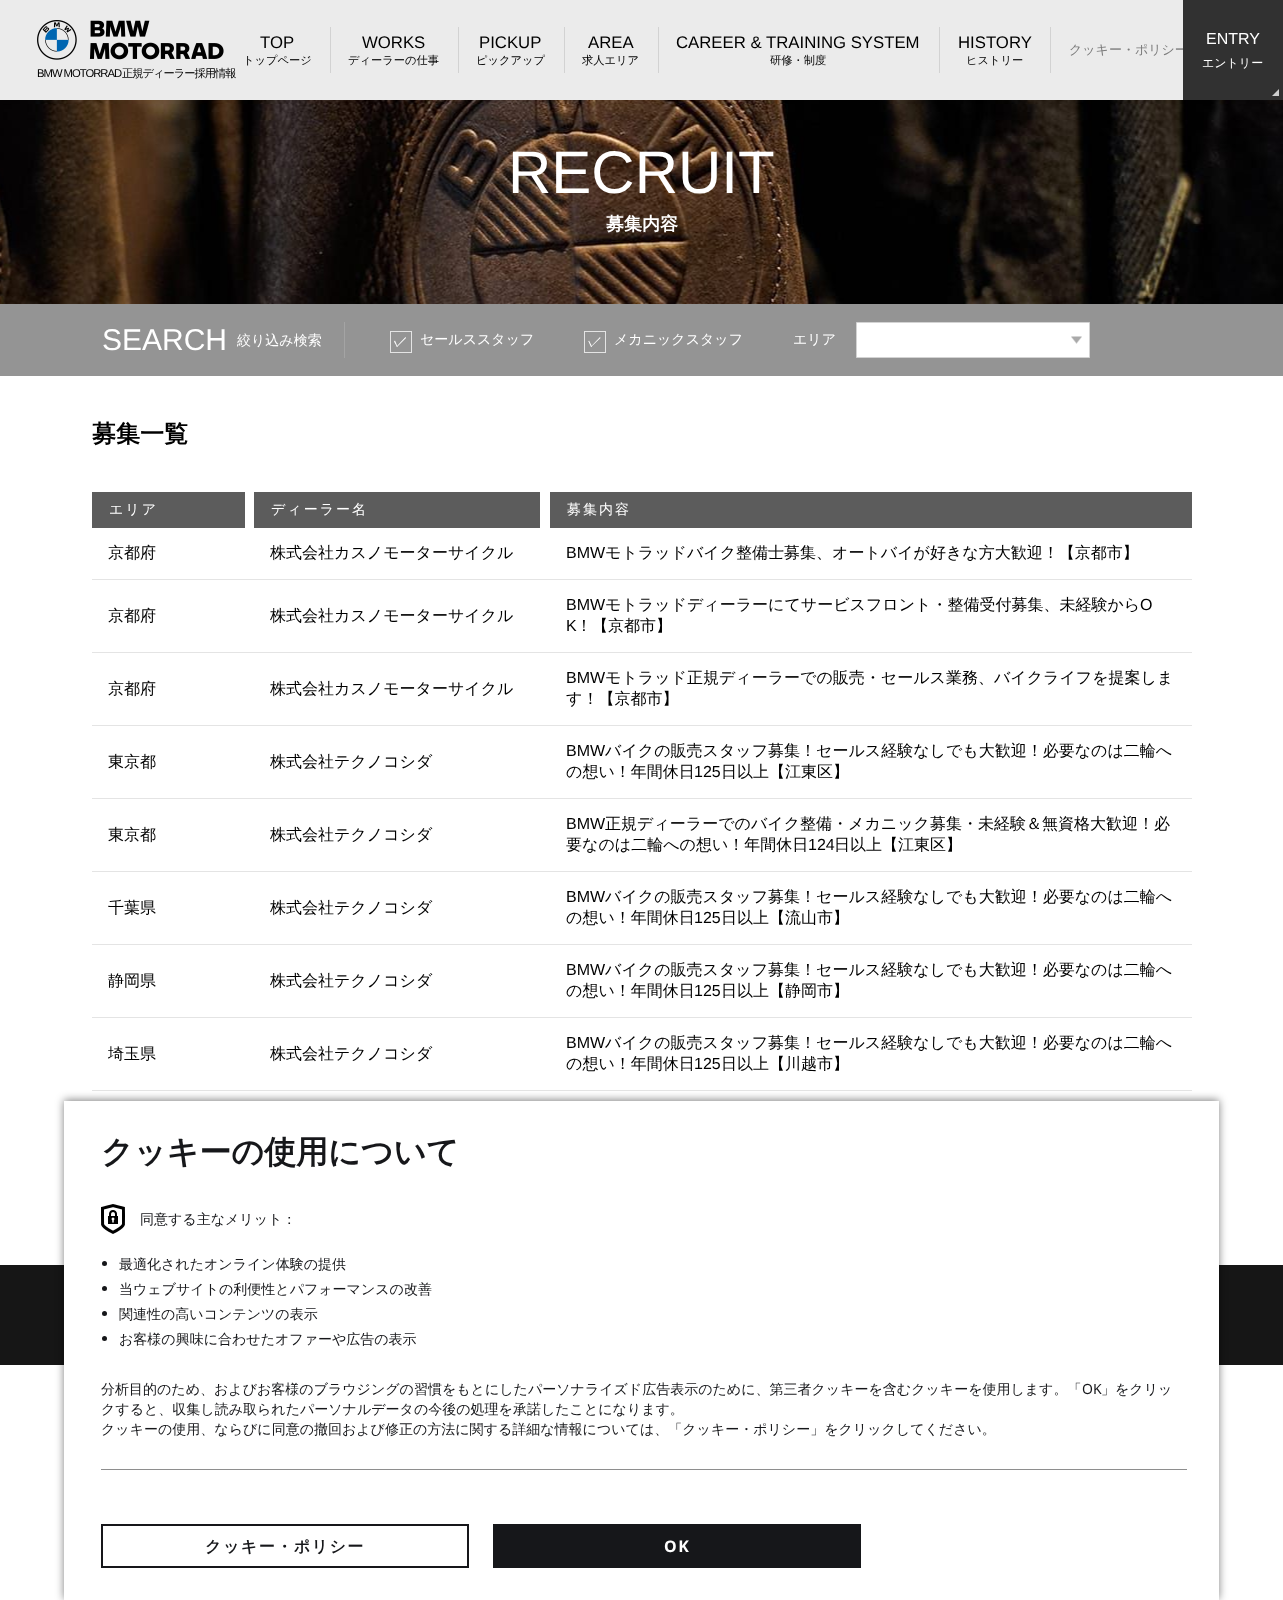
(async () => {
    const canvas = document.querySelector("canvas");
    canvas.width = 1283;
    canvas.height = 1600;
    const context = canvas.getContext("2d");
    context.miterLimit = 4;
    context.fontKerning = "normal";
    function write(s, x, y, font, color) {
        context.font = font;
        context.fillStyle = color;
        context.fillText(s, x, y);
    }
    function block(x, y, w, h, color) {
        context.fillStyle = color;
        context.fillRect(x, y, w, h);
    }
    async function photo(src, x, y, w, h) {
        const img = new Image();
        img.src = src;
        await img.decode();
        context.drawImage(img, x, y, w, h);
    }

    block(0, 0, 1283, 1600, "rgb(255, 255, 255)");
    block(0, 0, 1183, 100, "rgb(235, 235, 235)");
    write("TOP", 260, 48, "16.75px Liberation Sans", "rgb(0, 0, 0)");
    write("トップページ", 243, 64, "500 11.25px WenQuanYi Zen Hei", "rgb(0, 0, 0)");
    block(330, 27, 1, 46, "rgb(210, 210, 210)");
    write("WORKS", 362, 48, "16.75px Liberation Sans", "rgb(0, 0, 0)");
    write("ディーラーの仕事", 348, 64, "500 11.25px WenQuanYi Zen Hei", "rgb(0, 0, 0)");
    block(458, 27, 1, 46, "rgb(210, 210, 210)");
    write("PICKUP", 479, 48, "16.75px Liberation Sans", "rgb(0, 0, 0)");
    write("ピックアップ", 476, 64, "500 11.25px WenQuanYi Zen Hei", "rgb(0, 0, 0)");
    block(564, 27, 1, 46, "rgb(210, 210, 210)");
    write("AREA", 588, 48, "16.75px Liberation Sans", "rgb(0, 0, 0)");
    write("求人エリア", 582, 64, "500 11.25px WenQuanYi Zen Hei", "rgb(0, 0, 0)");
    block(658, 27, 1, 46, "rgb(210, 210, 210)");
    write("CAREER &", 676, 48, "16.75px Liberation Sans", "rgb(0, 0, 0)");
    write("TRAINING SYSTEM", 766, 48, "16.75px Liberation Sans", "rgb(0, 0, 0)");
    write("研修・制度", 770, 64, "500 11.25px WenQuanYi Zen Hei", "rgb(0, 0, 0)");
    block(939, 27, 1, 46, "rgb(210, 210, 210)");
    write("HISTORY", 958, 48, "16.75px Liberation Sans", "rgb(0, 0, 0)");
    write("ヒストリー", 966, 64, "500 11.25px WenQuanYi Zen Hei", "rgb(0, 0, 0)");
    block(1050, 27, 1, 46, "rgb(210, 210, 210)");
    write("クッキー・ポリシー", 1069, 54, "500 13px WenQuanYi Zen Hei", "rgb(123, 123, 123)");
    block(1183, 0, 100, 100, "rgb(49, 49, 49)");
    write("ENTRY", 1206, 44, "16px Liberation Sans", "rgb(255, 255, 255)");
    write("エントリー", 1202, 67, "500 12px WenQuanYi Zen Hei", "rgb(255, 255, 255)");
    context.fillStyle = "rgb(206, 206, 206)";
    context.beginPath();
    context.moveTo(1279, 96);
    context.lineTo(1272, 96);
    context.lineTo(1279, 89);
    context.closePath();
    context.fill();
    await photo("media/1.png", 37, 20, 187, 40);
    context.letterSpacing = "-1px";
    write("BMW MOTORRAD", 37, 77, "11.25px Liberation Sans", "rgb(0, 0, 0)");
    write("正規ディーラー採用情報", 122, 77, "500 11.25px WenQuanYi Zen Hei", "rgb(0, 0, 0)");
    await photo("media/2.png", 0, 100, 1283, 204);
    context.letterSpacing = "0px";
    write("RECRUIT", 508, 193, "60px Liberation Sans", "rgb(255, 255, 255)");
    write("募集内容", 606, 230, "bold 18px WenQuanYi Zen Hei", "rgb(255, 255, 255)");
    block(0, 304, 1283, 72, "rgb(148, 148, 148)");
    write("SEARCH", 102, 350, "30px Liberation Sans", "rgb(255, 255, 255)");
    write("絞り込み検索", 237, 345, "500 14px WenQuanYi Zen Hei", "rgb(255, 255, 255)");
    block(344, 322, 1, 36, "rgb(164, 164, 164)");
    context.strokeStyle = "rgb(228, 228, 228)";
    context.strokeRect(390.5, 331.5, 21, 21);
    write("セールススタッフ", 420, 344, "500 14px WenQuanYi Zen Hei", "rgb(255, 255, 255)");
    context.beginPath();
    context.moveTo(396.5, 346.5);
    context.lineTo(405.5, 337);
    context.lineTo(406, 338);
    context.lineTo(397, 347);
    context.closePath();
    context.fill();
    context.beginPath();
    context.moveTo(394, 341.5);
    context.lineTo(395, 340.5);
    context.lineTo(397.5, 346.5);
    context.lineTo(397, 347);
    context.closePath();
    context.fill();
    context.strokeRect(584.5, 331.5, 21, 21);
    write("メカニックスタッフ", 614, 344, "500 14px WenQuanYi Zen Hei", "rgb(255, 255, 255)");
    context.beginPath();
    context.moveTo(591, 346.5);
    context.lineTo(600, 337);
    context.lineTo(600.5, 338);
    context.lineTo(591, 347);
    context.closePath();
    context.fill();
    context.beginPath();
    context.moveTo(588.5, 341.5);
    context.lineTo(589, 340.5);
    context.lineTo(592, 346.5);
    context.lineTo(591, 347);
    context.closePath();
    context.fill();
    write("エリア", 793, 344, "500 14px WenQuanYi Zen Hei", "rgb(255, 255, 255)");
    context.beginPath();
    context.rect(856.5, 322.5, 233, 35);
    context.fill();
    context.strokeStyle = "rgb(211, 211, 211)";
    context.stroke();
    await photo("media/3.png", 1071, 336, 11, 8);
    write("募集一覧", 92, 442, "bold 24px WenQuanYi Zen Hei", "rgb(0, 0, 0)");
    block(92, 492, 153, 36, "rgb(92, 92, 92)");
    context.letterSpacing = "2px";
    write("エリア", 109, 514, "500 14px WenQuanYi Zen Hei", "rgb(255, 255, 255)");
    block(254, 492, 286, 36, "rgb(92, 92, 92)");
    write("ディーラー名", 271, 514, "500 14px WenQuanYi Zen Hei", "rgb(255, 255, 255)");
    block(550, 492, 642, 36, "rgb(92, 92, 92)");
    write("募集内容", 567, 514, "500 14px WenQuanYi Zen Hei", "rgb(255, 255, 255)");
    block(92, 579, 1100, 1, "rgb(228, 228, 228)");
    context.letterSpacing = "0px";
    write("京都府", 108, 558, "500 16px WenQuanYi Zen Hei", "rgb(0, 0, 0)");
    write("株式会社カスノモーターサイクル", 270, 558, "500 16px WenQuanYi Zen Hei", "rgb(0, 0, 0)");
    write("BMW", 566, 558, "16px Liberation Sans", "rgb(0, 0, 0)");
    write("モトラッドバイク整備士募集、オートバイが好きな方大歓迎！【京都市】", 605, 558, "500 16px WenQuanYi Zen Hei", "rgb(0, 0, 0)");
    block(92, 652, 1100, 1, "rgb(228, 228, 228)");
    write("京都府", 108, 621, "500 16px WenQuanYi Zen Hei", "rgb(0, 0, 0)");
    write("株式会社カスノモーターサイクル", 270, 621, "500 16px WenQuanYi Zen Hei", "rgb(0, 0, 0)");
    write("BMW", 566, 610, "16px Liberation Sans", "rgb(0, 0, 0)");
    write("モトラッドディーラーにてサービスフロント・整備受付募集、未経験から", 605, 610, "500 16px WenQuanYi Zen Hei", "rgb(0, 0, 0)");
    write("O", 1140, 610, "16px Liberation Sans", "rgb(0, 0, 0)");
    write("K", 566, 631, "16px Liberation Sans", "rgb(0, 0, 0)");
    write("！【京都市】", 576, 631, "500 16px WenQuanYi Zen Hei", "rgb(0, 0, 0)");
    block(92, 725, 1100, 1, "rgb(228, 228, 228)");
    write("京都府", 108, 694, "500 16px WenQuanYi Zen Hei", "rgb(0, 0, 0)");
    write("株式会社カスノモーターサイクル", 270, 694, "500 16px WenQuanYi Zen Hei", "rgb(0, 0, 0)");
    write("BMW", 566, 683, "16px Liberation Sans", "rgb(0, 0, 0)");
    write("モトラッド正規ディーラーでの販売・セールス業務、バイクライフを提案しま", 605, 683, "500 16px WenQuanYi Zen Hei", "rgb(0, 0, 0)");
    write("す！【京都市】", 566, 704, "500 16px WenQuanYi Zen Hei", "rgb(0, 0, 0)");
    block(92, 798, 1100, 1, "rgb(228, 228, 228)");
    write("東京都", 108, 767, "500 16px WenQuanYi Zen Hei", "rgb(0, 0, 0)");
    write("株式会社テクノコシダ", 270, 767, "500 16px WenQuanYi Zen Hei", "rgb(0, 0, 0)");
    write("BMW", 566, 756, "16px Liberation Sans", "rgb(0, 0, 0)");
    write("バイクの販売スタッフ募集！セールス経験なしでも大歓迎！必要なのは二輪へ", 605, 756, "500 16px WenQuanYi Zen Hei", "rgb(0, 0, 0)");
    write("の想い！年間休日", 566, 777, "500 16px WenQuanYi Zen Hei", "rgb(0, 0, 0)");
    write("125", 694, 777, "16px Liberation Sans", "rgb(0, 0, 0)");
    write("日以上【江東区】", 721, 777, "500 16px WenQuanYi Zen Hei", "rgb(0, 0, 0)");
    block(92, 871, 1100, 1, "rgb(228, 228, 228)");
    write("東京都", 108, 840, "500 16px WenQuanYi Zen Hei", "rgb(0, 0, 0)");
    write("株式会社テクノコシダ", 270, 840, "500 16px WenQuanYi Zen Hei", "rgb(0, 0, 0)");
    write("BMW", 566, 829, "16px Liberation Sans", "rgb(0, 0, 0)");
    write("正規ディーラーでのバイク整備・メカニック募集・未経験＆無資格大歓迎！必", 605, 829, "500 16px WenQuanYi Zen Hei", "rgb(0, 0, 0)");
    write("要なのは二輪への想い！年間休日", 566, 850, "500 16px WenQuanYi Zen Hei", "rgb(0, 0, 0)");
    write("124", 808, 850, "16px Liberation Sans", "rgb(0, 0, 0)");
    write("日以上【江東区】", 834, 850, "500 16px WenQuanYi Zen Hei", "rgb(0, 0, 0)");
    block(92, 944, 1100, 1, "rgb(228, 228, 228)");
    write("千葉県", 108, 913, "500 16px WenQuanYi Zen Hei", "rgb(0, 0, 0)");
    write("株式会社テクノコシダ", 270, 913, "500 16px WenQuanYi Zen Hei", "rgb(0, 0, 0)");
    write("BMW", 566, 902, "16px Liberation Sans", "rgb(0, 0, 0)");
    write("バイクの販売スタッフ募集！セールス経験なしでも大歓迎！必要なのは二輪へ", 605, 902, "500 16px WenQuanYi Zen Hei", "rgb(0, 0, 0)");
    write("の想い！年間休日", 566, 923, "500 16px WenQuanYi Zen Hei", "rgb(0, 0, 0)");
    write("125", 694, 923, "16px Liberation Sans", "rgb(0, 0, 0)");
    write("日以上【流山市】", 721, 923, "500 16px WenQuanYi Zen Hei", "rgb(0, 0, 0)");
    block(92, 1017, 1100, 1, "rgb(228, 228, 228)");
    write("静岡県", 108, 986, "500 16px WenQuanYi Zen Hei", "rgb(0, 0, 0)");
    write("株式会社テクノコシダ", 270, 986, "500 16px WenQuanYi Zen Hei", "rgb(0, 0, 0)");
    write("BMW", 566, 975, "16px Liberation Sans", "rgb(0, 0, 0)");
    write("バイクの販売スタッフ募集！セールス経験なしでも大歓迎！必要なのは二輪へ", 605, 975, "500 16px WenQuanYi Zen Hei", "rgb(0, 0, 0)");
    write("の想い！年間休日", 566, 996, "500 16px WenQuanYi Zen Hei", "rgb(0, 0, 0)");
    write("125", 694, 996, "16px Liberation Sans", "rgb(0, 0, 0)");
    write("日以上【静岡市】", 721, 996, "500 16px WenQuanYi Zen Hei", "rgb(0, 0, 0)");
    block(92, 1090, 1100, 1, "rgb(228, 228, 228)");
    write("埼玉県", 108, 1059, "500 16px WenQuanYi Zen Hei", "rgb(0, 0, 0)");
    write("株式会社テクノコシダ", 270, 1059, "500 16px WenQuanYi Zen Hei", "rgb(0, 0, 0)");
    write("BMW", 566, 1048, "16px Liberation Sans", "rgb(0, 0, 0)");
    write("バイクの販売スタッフ募集！セールス経験なしでも大歓迎！必要なのは二輪へ", 605, 1048, "500 16px WenQuanYi Zen Hei", "rgb(0, 0, 0)");
    write("の想い！年間休日", 566, 1069, "500 16px WenQuanYi Zen Hei", "rgb(0, 0, 0)");
    write("125", 694, 1069, "16px Liberation Sans", "rgb(0, 0, 0)");
    write("日以上【川越市】", 721, 1069, "500 16px WenQuanYi Zen Hei", "rgb(0, 0, 0)");
    block(0, 1265, 1283, 100, "rgb(22, 22, 22)");
    context.fillStyle = "rgba(0, 0, 0, 0.5)";
    context.filter = "blur(4px)";
    context.beginPath();
    context.rect(64, 1100, 1155, 499);
    context.fill();
    context.filter = "none";
    block(64, 1101, 1155, 499, "rgb(255, 255, 255)");
    write("クッキーの使用について", 101, 1163, "bold 32px WenQuanYi Zen Hei", "rgb(22, 23, 26)");
    await photo("media/4.png", 101, 1204, 24, 30);
    write("同意する主なメリット：", 140, 1224, "500 14px WenQuanYi Zen Hei", "rgb(22, 23, 26)");
    context.beginPath();
    context.arc(104.5, 1263.5, 2.5, 0, Math.PI * 2);
    context.fill();
    write("最適化されたオンライン体験の提供", 119, 1269, "500 14px WenQuanYi Zen Hei", "rgb(22, 23, 26)");
    context.beginPath();
    context.arc(104.5, 1288.5, 2.5, 0, Math.PI * 2);
    context.fill();
    write("当ウェブサイトの利便性とパフォーマンスの改善", 119, 1294, "500 14px WenQuanYi Zen Hei", "rgb(22, 23, 26)");
    context.beginPath();
    context.arc(104.5, 1313.5, 2.5, 0, Math.PI * 2);
    context.fill();
    write("関連性の高いコンテンツの表示", 119, 1319, "500 14px WenQuanYi Zen Hei", "rgb(22, 23, 26)");
    context.beginPath();
    context.arc(104.5, 1338.5, 2.5, 0, Math.PI * 2);
    context.fill();
    write("お客様の興味に合わせたオファーや広告の表示", 119, 1344, "500 14px WenQuanYi Zen Hei", "rgb(22, 23, 26)");
    write("分析目的のため、およびお客様のブラウジングの習慣をもとにしたパーソナライズド広告表示のために、第三者クッキーを含むクッキーを使用します。「", 101, 1394, "500 14px WenQuanYi Zen Hei", "rgb(22, 23, 26)");
    write("OK", 1082, 1394, "14px Noto Sans", "rgb(22, 23, 26)");
    write("」をクリッ", 1101, 1394, "500 14px WenQuanYi Zen Hei", "rgb(22, 23, 26)");
    write("クすると、収集し読み取られたパーソナルデータの今後の処理を承諾したことになります。", 101, 1414, "500 14px WenQuanYi Zen Hei", "rgb(22, 23, 26)");
    write("クッキーの使用、ならびに同意の撤回および修正の方法に関する詳細な情報については、「クッキー・ポリシー」をクリックしてください。", 101, 1434, "500 14px WenQuanYi Zen Hei", "rgb(22, 23, 26)");
    block(101, 1469, 1086, 1, "rgb(142, 142, 142)");
    context.strokeStyle = "rgb(22, 23, 26)";
    context.lineWidth = 2;
    context.strokeRect(102, 1525, 366, 42);
    context.letterSpacing = "1.5px";
    write("クッキー・ポリシー", 205, 1552, "bold 16px WenQuanYi Zen Hei", "rgb(22, 23, 26)");
    block(493, 1524, 368, 44, "rgb(22, 23, 26)");
    write("OK", 664, 1552, "bold 16px Noto Sans", "rgb(255, 255, 255)");
})();
